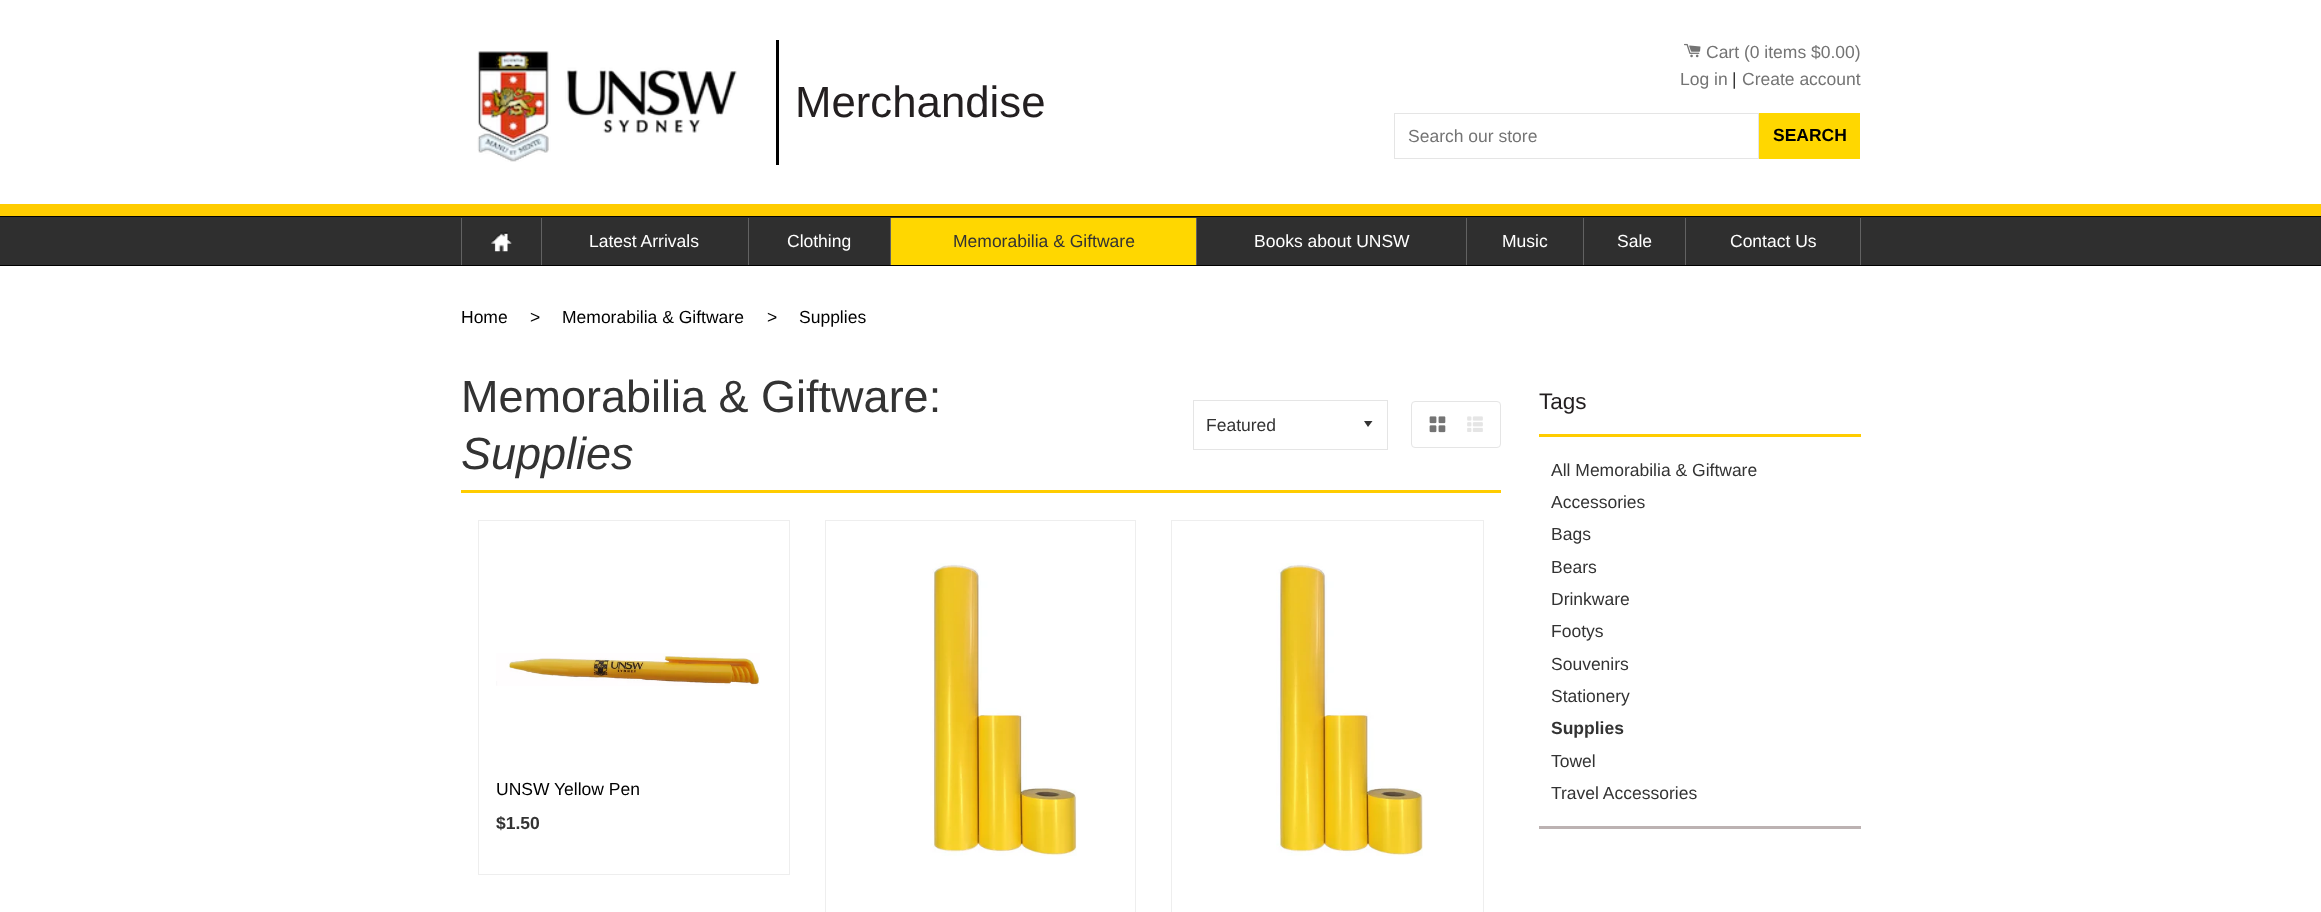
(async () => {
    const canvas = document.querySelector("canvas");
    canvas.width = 2321;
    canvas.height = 912;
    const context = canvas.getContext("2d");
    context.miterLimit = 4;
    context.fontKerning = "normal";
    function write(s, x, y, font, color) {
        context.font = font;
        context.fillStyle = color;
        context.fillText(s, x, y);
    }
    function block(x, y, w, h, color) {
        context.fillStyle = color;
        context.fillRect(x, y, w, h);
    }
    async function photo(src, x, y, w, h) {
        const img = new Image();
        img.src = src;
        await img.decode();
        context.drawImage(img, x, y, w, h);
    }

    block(0, 0, 2321, 912, "rgb(255, 255, 255)");
    block(0, 204, 2321, 12, "rgb(255, 204, 0)");
    block(776, 40, 3, 125, "rgb(0, 0, 0)");
    await photo("media/1.png", 477, 51, 260, 111);
    write("Merchandise", 795, 117, "43.75px Liberation Sans", "rgb(35, 31, 32)");
    await photo("media/2.png", 1684, 43, 17, 15);
    write("Cart (0 items $0.00)", 1706, 58, "17.5px Liberation Sans", "rgb(116, 116, 116)");
    write("Log in", 1680, 85, "17.5px Liberation Sans", "rgb(116, 116, 116)");
    write("|", 1732, 85, "17.5px Liberation Sans", "rgb(51, 51, 51)");
    write("Create account", 1742, 85, "17.5px Liberation Sans", "rgb(116, 116, 116)");
    context.strokeStyle = "rgb(229, 229, 229)";
    context.strokeRect(1394.5, 113.5, 364, 45);
    write("Search our store", 1408, 142, "17.5px Liberation Sans", "rgb(116, 116, 116)");
    block(1759, 113, 101, 46, "rgb(255, 215, 0)");
    write("SEARCH", 1773, 141, "bold 17.5px Liberation Sans", "rgb(0, 0, 0)");
    block(0, 217, 2321, 48, "rgb(47, 47, 47)");
    block(0, 216, 2321, 1, "rgb(0, 0, 0)");
    block(0, 265, 2321, 1, "rgb(0, 0, 0)");
    block(541, 218, 1, 47, "rgb(98, 98, 98)");
    block(461, 218, 1, 47, "rgb(98, 98, 98)");
    await photo("media/3.png", 491, 232, 21, 20);
    block(748, 218, 1, 47, "rgb(98, 98, 98)");
    write("Latest Arrivals", 589, 247, "17.5px Liberation Sans", "rgb(255, 255, 255)");
    block(890, 218, 1, 47, "rgb(98, 98, 98)");
    write("Clothing", 787, 247, "17.5px Liberation Sans", "rgb(255, 255, 255)");
    block(1196, 218, 1, 47, "rgb(98, 98, 98)");
    block(891, 218, 305, 47, "rgb(255, 215, 0)");
    write("Memorabilia & Giftware", 953, 247, "17.5px Liberation Sans", "rgb(51, 51, 51)");
    block(1466, 218, 1, 47, "rgb(98, 98, 98)");
    write("Books about UNSW", 1254, 247, "17.5px Liberation Sans", "rgb(255, 255, 255)");
    block(1583, 218, 1, 47, "rgb(98, 98, 98)");
    write("Music", 1502, 247, "17.5px Liberation Sans", "rgb(255, 255, 255)");
    block(1685, 218, 1, 47, "rgb(98, 98, 98)");
    write("Sale", 1617, 247, "17.5px Liberation Sans", "rgb(255, 255, 255)");
    block(1860, 218, 1, 47, "rgb(98, 98, 98)");
    write("Contact Us", 1730, 247, "17.5px Liberation Sans", "rgb(255, 255, 255)");
    write("Home", 461, 323, "17.5px Liberation Sans", "rgb(0, 0, 0)");
    write(">", 530, 323, "17.5px Liberation Sans", "rgb(0, 0, 0)");
    write("Memorabilia & Giftware", 562, 323, "17.5px Liberation Sans", "rgb(0, 0, 0)");
    write(">", 767, 323, "17.5px Liberation Sans", "rgb(0, 0, 0)");
    write("Supplies", 799, 323, "17.5px Liberation Sans", "rgb(0, 0, 0)");
    block(461, 490, 1040, 3, "rgb(255, 204, 0)");
    write("Memorabilia & Giftware:", 461, 412, "45px Liberation Sans", "rgb(51, 51, 51)");
    write("Supplies", 461, 469, "italic 45px Liberation Sans", "rgb(51, 51, 51)");
    context.beginPath();
    context.moveTo(1364, 421);
    context.lineTo(1368, 427);
    context.lineTo(1372.5, 421);
    context.closePath();
    context.fill();
    context.strokeRect(1193.5, 400.5, 194, 49);
    write("Featured", 1206, 431, "17.5px Liberation Sans", "rgb(51, 51, 51)");
    context.beginPath();
    context.roundRect(1411.5, 401.5, 89, 46, 3.5);
    context.stroke();
    await photo("media/4.png", 1429, 416, 17, 17);
    await photo("media/5.png", 1467, 416, 16, 16);
    context.strokeStyle = "rgb(238, 238, 238)";
    context.strokeRect(478.5, 520.5, 311, 354);
    await photo("media/6.png", 496, 653, 264, 33);
    write("UNSW Yellow Pen", 496, 795, "17.5px Liberation Sans", "rgb(0, 0, 0)");
    write("$1.50", 496, 829, "bold 17.5px Liberation Sans", "rgb(51, 51, 51)");
    context.strokeRect(825.5, 520.5, 310, 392);
    await photo("media/7.png", 930, 563, 147, 293);
    context.strokeRect(1171.5, 520.5, 312, 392);
    await photo("media/8.png", 1276, 563, 147, 293);
    block(1539, 826, 322, 3, "rgb(188, 178, 178)");
    block(1539, 434, 322, 3, "rgb(255, 204, 0)");
    write("Tags", 1539, 409, "22.5px Liberation Sans", "rgb(35, 31, 32)");
    write("All Memorabilia & Giftware", 1551, 476, "17.5px Liberation Sans", "rgb(51, 51, 51)");
    write("Accessories", 1551, 508, "17.5px Liberation Sans", "rgb(51, 51, 51)");
    write("Bags", 1551, 540, "17.5px Liberation Sans", "rgb(51, 51, 51)");
    write("Bears", 1551, 573, "17.5px Liberation Sans", "rgb(51, 51, 51)");
    write("Drinkware", 1551, 605, "17.5px Liberation Sans", "rgb(51, 51, 51)");
    write("Footys", 1551, 637, "17.5px Liberation Sans", "rgb(51, 51, 51)");
    write("Souvenirs", 1551, 670, "17.5px Liberation Sans", "rgb(51, 51, 51)");
    write("Stationery", 1551, 702, "17.5px Liberation Sans", "rgb(51, 51, 51)");
    write("Supplies", 1551, 734, "bold 17.5px Liberation Sans", "rgb(51, 51, 51)");
    write("Towel", 1551, 767, "17.5px Liberation Sans", "rgb(51, 51, 51)");
    write("Travel Accessories", 1551, 799, "17.5px Liberation Sans", "rgb(51, 51, 51)");
})();
